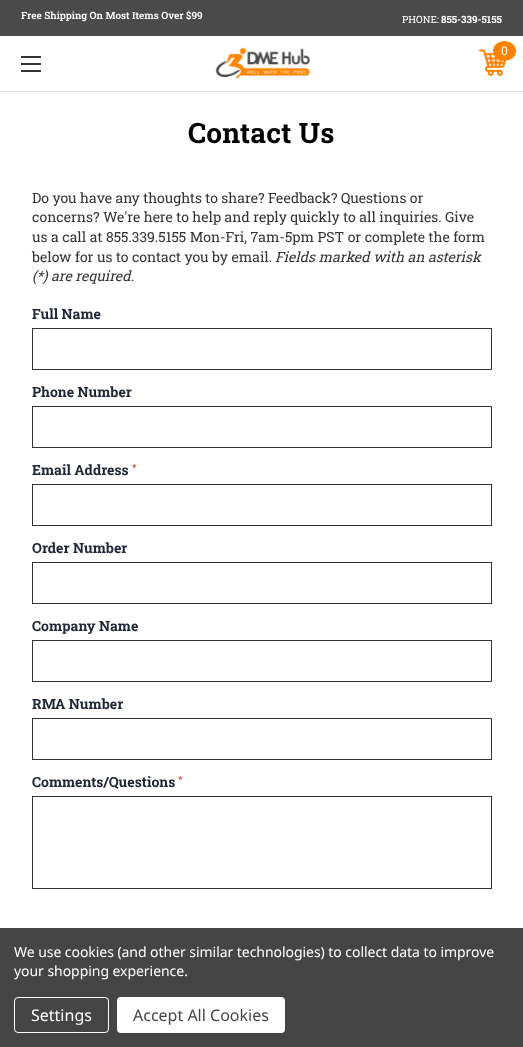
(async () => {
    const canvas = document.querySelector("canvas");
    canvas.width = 523;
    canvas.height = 1047;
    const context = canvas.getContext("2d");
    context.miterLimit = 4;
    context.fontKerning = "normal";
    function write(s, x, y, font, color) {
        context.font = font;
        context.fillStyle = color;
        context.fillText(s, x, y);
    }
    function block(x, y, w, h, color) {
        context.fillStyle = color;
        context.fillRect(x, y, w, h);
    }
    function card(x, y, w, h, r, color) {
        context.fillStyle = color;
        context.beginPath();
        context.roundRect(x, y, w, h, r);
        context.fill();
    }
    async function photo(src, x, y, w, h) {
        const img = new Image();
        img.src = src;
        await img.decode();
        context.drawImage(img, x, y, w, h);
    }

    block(0, 0, 523, 1047, "rgb(255, 255, 255)");
    block(0, 0, 523, 36, "rgb(75, 75, 75)");
    write("Free Shipping On Most Items Over $99", 21, 19, "600 10px Roboto Slab", "rgb(255, 255, 255)");
    write("PHONE:", 402, 23, "10px Roboto Slab", "rgb(255, 255, 255)");
    write("855-339-5155", 441, 23, "bold 10px Roboto Slab", "rgb(255, 255, 255)");
    block(0, 91, 523, 1, "rgb(225, 225, 225)");
    block(21, 63, 20, 2, "rgb(51, 51, 51)");
    block(21, 56, 20, 2, "rgb(51, 51, 51)");
    block(21, 70, 20, 2, "rgb(51, 51, 51)");
    await photo("media/1.png", 215, 47, 96, 32);
    await photo("media/2.png", 479, 49, 27, 27);
    context.fillStyle = "rgb(254, 130, 0)";
    context.beginPath();
    context.ellipse(504.5, 51, 11.5, 10, 0, 0, Math.PI * 2);
    context.fill();
    write("0", 501, 55, "12px Roboto Slab", "rgb(255, 255, 255)");
    context.letterSpacing = "0.25px";
    write("Contact Us", 188, 143, "bold 28px Roboto Slab", "rgb(1, 1, 1)");
    context.letterSpacing = "0px";
    write("Do you have any thoughts to share? Feedback? Questions or", 32, 203, "14px Roboto Slab", "rgb(51, 51, 51)");
    write("concerns? We're here to help and reply quickly to all inquiries. Give", 32, 222, "14px Roboto Slab", "rgb(51, 51, 51)");
    write("us a call at 855.339.5155 Mon-Fri, 7am-5pm PST or complete the form", 32, 242, "14px Roboto Slab", "rgb(51, 51, 51)");
    write("below for us to contact you by email.", 32, 262, "14px Roboto Slab", "rgb(51, 51, 51)");
    write("Fields marked with an asterisk", 275, 262, "italic 14px Roboto Slab", "rgb(51, 51, 51)");
    write("(*) are required.", 32, 281, "italic 14px Roboto Slab", "rgb(51, 51, 51)");
    write("Full Name", 32, 319, "bold 14px Roboto Slab", "rgb(32, 39, 56)");
    context.strokeStyle = "rgb(51, 51, 51)";
    context.strokeRect(32.5, 328.5, 459, 41);
    write("Phone Number", 32, 397, "bold 14px Roboto Slab", "rgb(32, 39, 56)");
    context.strokeRect(32.5, 406.5, 459, 41);
    write("Email Address", 32, 475, "bold 14px Roboto Slab", "rgb(32, 39, 56)");
    write("*", 132, 471, "500 10px Roboto Slab", "rgb(204, 71, 73)");
    context.strokeRect(32.5, 484.5, 459, 41);
    write("Order Number", 32, 553, "bold 14px Roboto Slab", "rgb(32, 39, 56)");
    context.strokeRect(32.5, 562.5, 459, 41);
    write("Company Name", 32, 631, "bold 14px Roboto Slab", "rgb(32, 39, 56)");
    context.strokeRect(32.5, 640.5, 459, 41);
    write("RMA Number", 32, 709, "bold 14px Roboto Slab", "rgb(32, 39, 56)");
    context.strokeRect(32.5, 718.5, 459, 41);
    write("Comments/Questions", 32, 787, "bold 14px Roboto Slab", "rgb(32, 39, 56)");
    write("*", 178, 783, "500 10px Roboto Slab", "rgb(204, 71, 73)");
    context.strokeRect(32.5, 796.5, 459, 92);
    block(0, 928, 523, 119, "rgb(69, 69, 69)");
    context.letterSpacing = "-0.05px";
    write("We use cookies (and other similar technologies) to collect data to improve", 14, 957, "14px Noto Sans", "rgb(255, 255, 255)");
    write("your shopping experience.", 14, 976, "14px Noto Sans", "rgb(255, 255, 255)");
    context.beginPath();
    context.roundRect(14.5, 997.5, 94, 35, 3.5);
    context.strokeStyle = "rgb(255, 255, 255)";
    context.stroke();
    context.letterSpacing = "0px";
    write("Settings", 31, 1021, "16px Noto Sans", "rgb(255, 255, 255)");
    card(117, 997, 168, 36, 4, "rgb(255, 255, 255)");
    write("Accept All Cookies", 133, 1021, "16px Noto Sans", "rgb(69, 69, 69)");
})();
